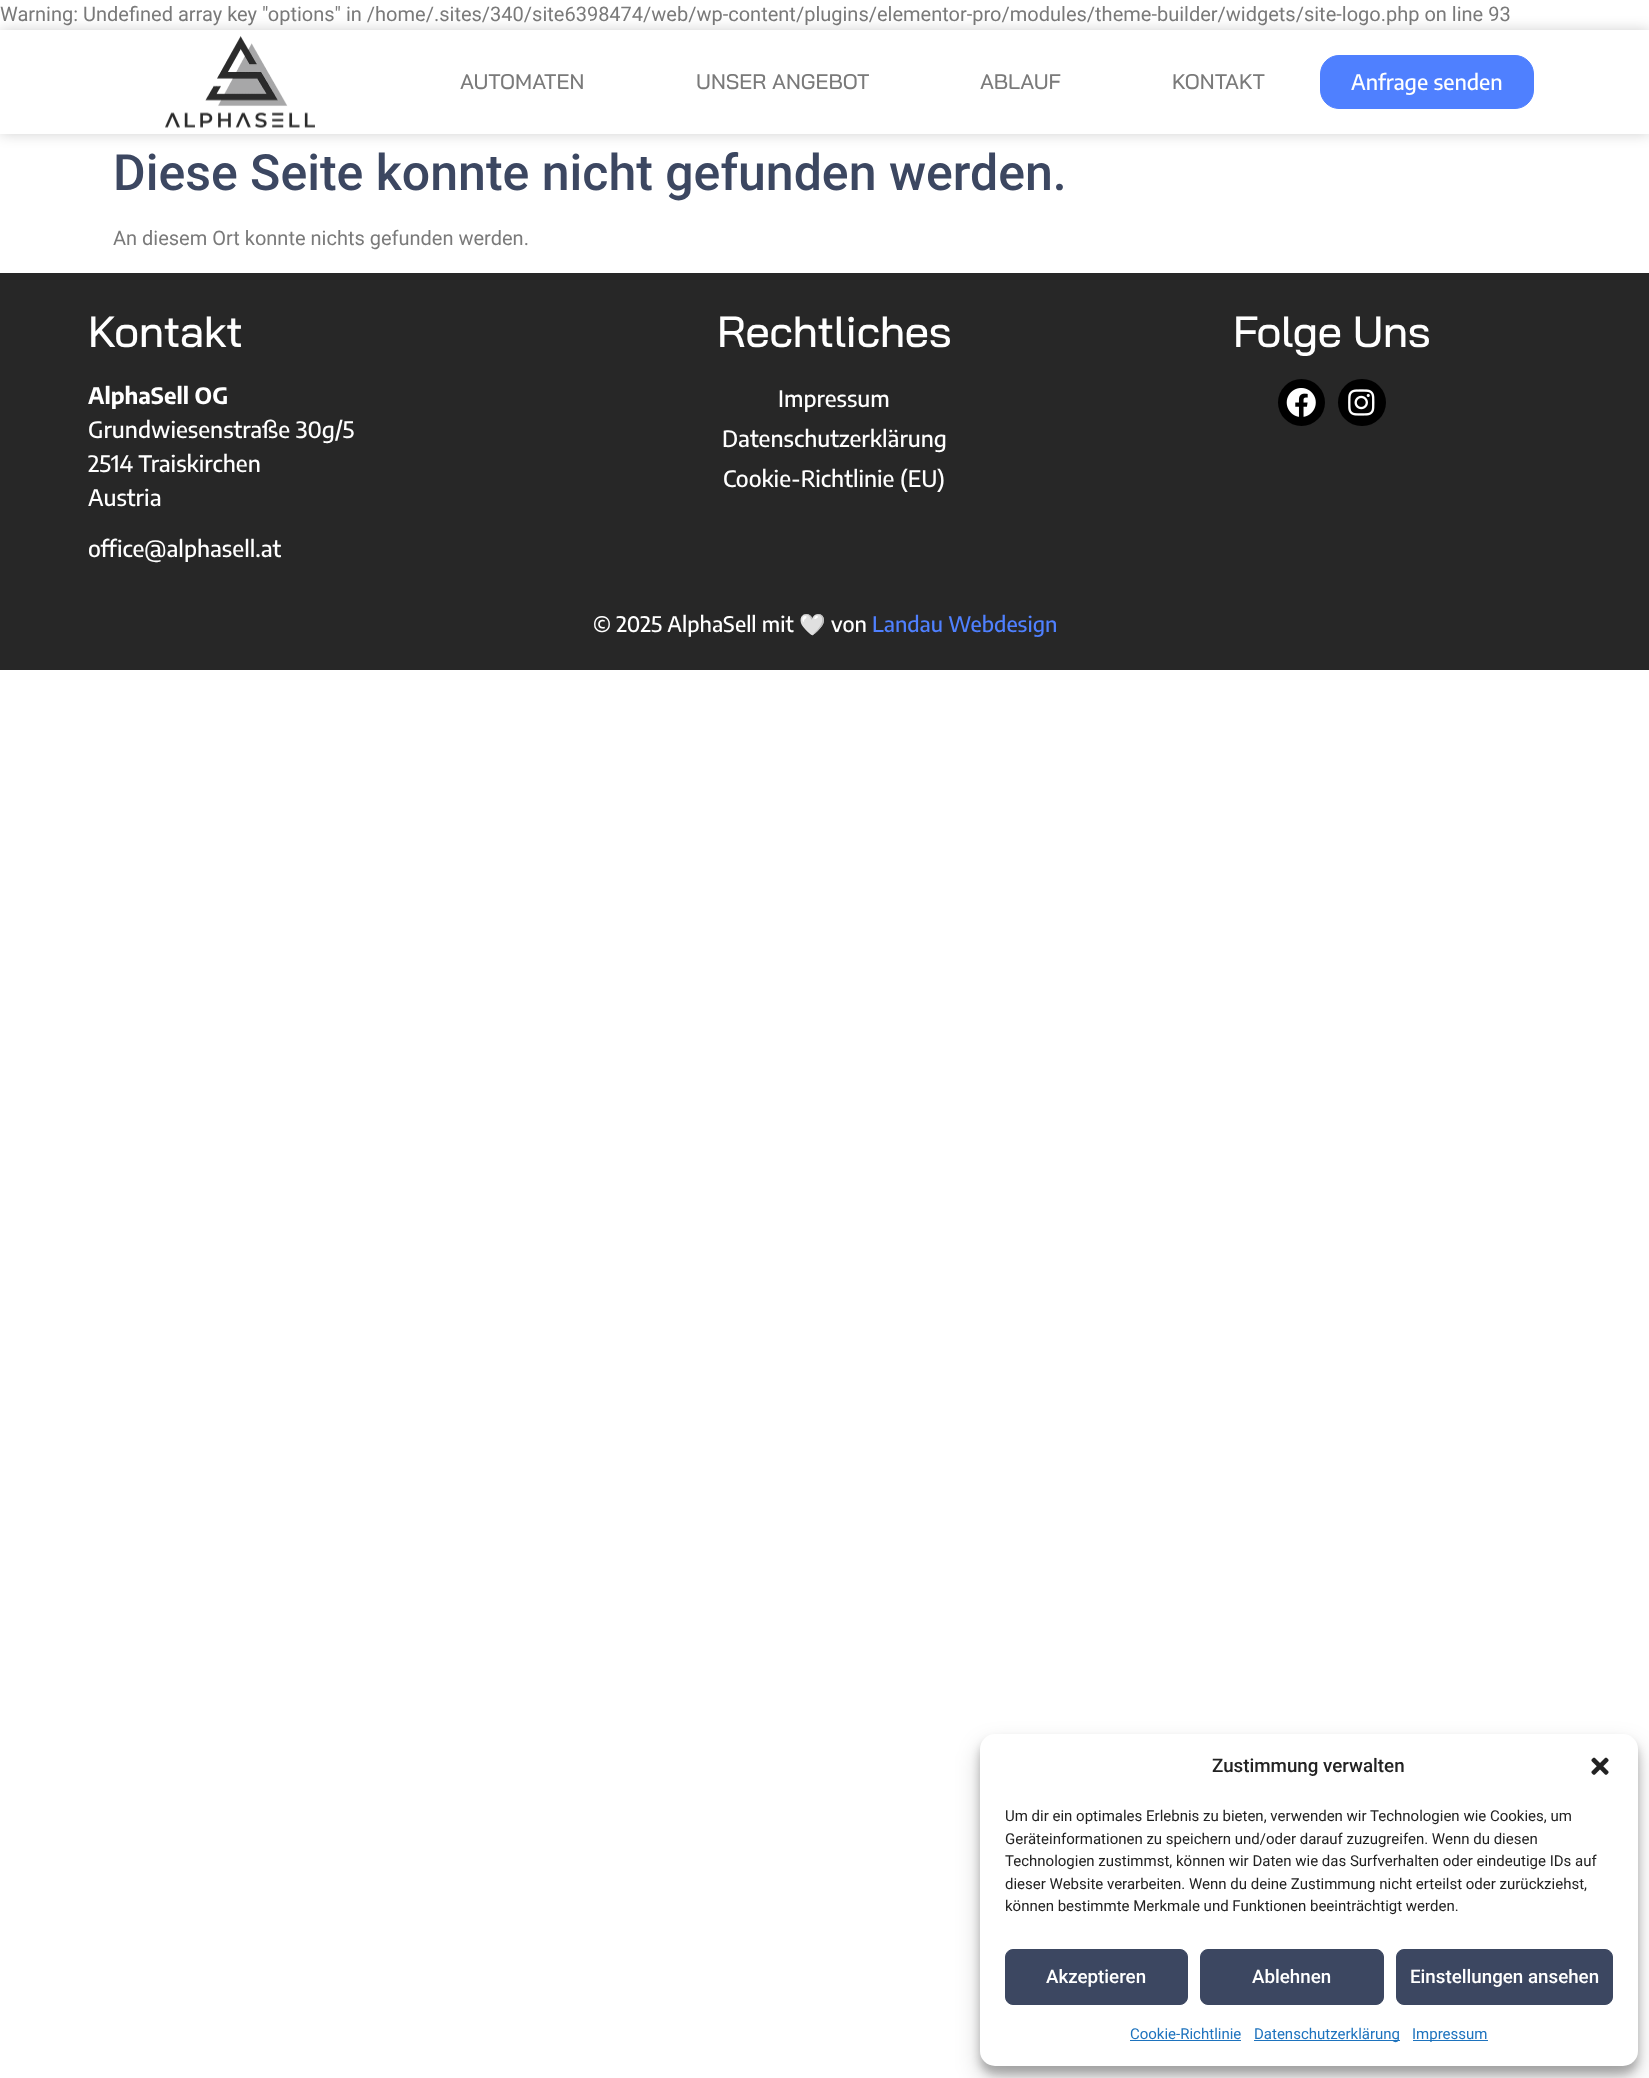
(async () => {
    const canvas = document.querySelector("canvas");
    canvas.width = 1649;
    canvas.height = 2078;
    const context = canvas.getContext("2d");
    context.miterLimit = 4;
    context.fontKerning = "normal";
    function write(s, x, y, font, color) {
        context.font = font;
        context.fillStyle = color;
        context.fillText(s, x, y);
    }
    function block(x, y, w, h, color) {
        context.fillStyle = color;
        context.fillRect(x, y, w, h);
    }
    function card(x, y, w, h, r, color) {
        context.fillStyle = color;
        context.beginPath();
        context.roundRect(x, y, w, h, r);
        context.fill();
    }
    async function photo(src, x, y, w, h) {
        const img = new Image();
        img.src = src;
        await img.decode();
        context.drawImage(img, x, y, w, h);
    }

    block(0, 0, 1649, 2078, "rgb(255, 255, 255)");
    write("Warning: Undefined array key \"options\" in /home/.sites/340/site6398474/web/wp-content/plugins/elementor-pro/modules/theme-builder/widgets/site-logo.php on line 93", 0, 21, "20px Roboto", "rgb(122, 122, 122)");
    context.fillStyle = "rgba(0, 0, 0, 0.18)";
    context.filter = "blur(7px)";
    context.beginPath();
    context.rect(0, 30, 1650, 104);
    context.fill();
    context.filter = "none";
    block(0, 30, 1649, 104, "rgb(255, 255, 255)");
    await photo("media/1.png", 165, 36, 150, 92);
    write("AUTOMATEN", 460, 89, "500 21.25px Bai Jamjuree", "rgb(122, 122, 122)");
    write("UNSER ANGEBOT", 696, 89, "500 21.25px Bai Jamjuree", "rgb(122, 122, 122)");
    write("ABLAUF", 980, 89, "500 21.25px Bai Jamjuree", "rgb(122, 122, 122)");
    write("KONTAKT", 1172, 89, "500 21.25px Bai Jamjuree", "rgb(122, 122, 122)");
    context.fillStyle = "rgb(79, 128, 255)";
    context.beginPath();
    context.roundRect(1320.5, 55.5, 213, 53, 18.5);
    context.fill();
    context.strokeStyle = "rgb(79, 128, 255)";
    context.stroke();
    write("Anfrage senden", 1351, 90, "500 21.25px Encode Sans Condensed", "rgb(255, 255, 255)");
    write("Diese Seite konnte nicht gefunden werden.", 113, 190, "500 50px Roboto", "rgb(60, 71, 97)");
    write("An diesem Ort konnte nichts gefunden werden.", 113, 245, "20px Roboto", "rgb(122, 122, 122)");
    block(0, 273, 1649, 397, "rgb(39, 39, 39)");
    context.letterSpacing = "-0.6px";
    write("Kontakt", 88, 347, "500 43.75px Bai Jamjuree", "rgb(255, 255, 255)");
    context.letterSpacing = "0px";
    write("AlphaSell OG", 88, 404, "bold 22.5px Encode Sans Condensed", "rgb(255, 255, 255)");
    write("Grundwiesenstraße 30g/5", 88, 438, "500 22.5px Encode Sans Condensed", "rgb(255, 255, 255)");
    write("2514 Traiskirchen", 88, 472, "500 22.5px Encode Sans Condensed", "rgb(255, 255, 255)");
    write("Austria", 88, 506, "500 22.5px Encode Sans Condensed", "rgb(255, 255, 255)");
    write("office@alphasell.at", 88, 557, "500 22.5px Encode Sans Condensed", "rgb(255, 255, 255)");
    context.letterSpacing = "-0.6px";
    write("Rechtliches", 717, 347, "500 43.75px Bai Jamjuree", "rgb(255, 255, 255)");
    context.letterSpacing = "0px";
    write("Impressum", 778, 407, "500 22.5px Encode Sans Condensed", "rgb(255, 255, 255)");
    write("Datenschutzerklärung", 722, 447, "500 22.5px Encode Sans Condensed", "rgb(255, 255, 255)");
    write("Cookie-Richtlinie (EU)", 723, 487, "500 22.5px Encode Sans Condensed", "rgb(255, 255, 255)");
    context.letterSpacing = "-0.6px";
    write("Folge Uns", 1233, 347, "500 43.75px Bai Jamjuree", "rgb(255, 255, 255)");
    context.fillStyle = "rgb(0, 0, 0)";
    context.beginPath();
    context.arc(1301.5, 402.5, 23.5, 0, Math.PI * 2);
    context.fill();
    await photo("media/2.png", 1286, 388, 30, 29);
    card(1338, 379, 48, 47, 23.5, "rgb(0, 0, 0)");
    await photo("media/3.png", 1348, 389, 27, 27);
    context.letterSpacing = "0px";
    write("© 2025 AlphaSell mit", 593, 632, "500 21.25px Encode Sans Condensed", "rgb(255, 255, 255)");
    write("🤍", 799, 632, "21.25px Noto Color Emoji", "rgb(255, 255, 255)");
    write("von", 831, 632, "500 21.25px Encode Sans Condensed", "rgb(255, 255, 255)");
    write("Landau Webdesign", 872, 632, "500 21.25px Encode Sans Condensed", "rgb(79, 128, 255)");
    context.fillStyle = "rgba(0, 0, 0, 0.23)";
    context.filter = "blur(4px)";
    context.beginPath();
    context.roundRect(980, 1741, 658, 333, 15);
    context.fill();
    context.filter = "none";
    context.fillStyle = "rgba(0, 0, 0, 0.19)";
    context.filter = "blur(12.5px)";
    context.beginPath();
    context.roundRect(980, 1746, 658, 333, 15);
    context.fill();
    context.filter = "none";
    card(980, 1734, 658, 332, 15, "rgb(255, 255, 255)");
    write("Zustimmung verwalten", 1212, 1772, "500 18.75px Roboto", "rgb(34, 34, 34)");
    await photo("media/4.png", 1591, 1757, 18, 18);
    write("Um dir ein optimales Erlebnis zu bieten, verwenden wir Technologien wie Cookies, um", 1005, 1821, "15px Roboto", "rgb(34, 34, 34)");
    write("Geräteinformationen zu speichern und/oder darauf zuzugreifen. Wenn du diesen", 1005, 1844, "15px Roboto", "rgb(34, 34, 34)");
    write("Technologien zustimmst, können wir Daten wie das Surfverhalten oder eindeutige IDs auf", 1005, 1866, "15px Roboto", "rgb(34, 34, 34)");
    write("dieser Website verarbeiten. Wenn du deine Zustimmung nicht erteilst oder zurückziehst,", 1005, 1889, "15px Roboto", "rgb(34, 34, 34)");
    write("können bestimmte Merkmale und Funktionen beeinträchtigt werden.", 1005, 1911, "15px Roboto", "rgb(34, 34, 34)");
    context.fillStyle = "rgb(60, 71, 97)";
    context.beginPath();
    context.roundRect(1005.5, 1949.5, 182, 55, 7.5);
    context.fill();
    context.strokeStyle = "rgb(60, 71, 97)";
    context.stroke();
    write("Akzeptieren", 1046, 1983, "500 18.75px Roboto", "rgb(255, 255, 255)");
    context.fillStyle = "rgb(60, 71, 97)";
    context.beginPath();
    context.roundRect(1200.5, 1949.5, 183, 55, 7.5);
    context.fill();
    context.stroke();
    write("Ablehnen", 1252, 1983, "500 18.75px Roboto", "rgb(255, 255, 255)");
    context.fillStyle = "rgb(60, 71, 97)";
    context.beginPath();
    context.roundRect(1396.5, 1949.5, 216, 55, 7.5);
    context.fill();
    context.stroke();
    write("Einstellungen ansehen", 1410, 1983, "500 18.75px Roboto", "rgb(255, 255, 255)");
    write("Cookie-Richtlinie", 1130, 2039, "15px Roboto", "rgb(30, 115, 190)");
    block(1130, 2040, 111, 1, "rgb(30, 115, 190)");
    block(1254, 2040, 146, 1, "rgb(30, 115, 190)");
    write("Datenschutzerklärung", 1254, 2039, "15px Roboto", "rgb(30, 115, 190)");
    block(1413, 2040, 75, 1, "rgb(30, 115, 190)");
    write("Impressum", 1412, 2039, "15px Roboto", "rgb(30, 115, 190)");
})();
